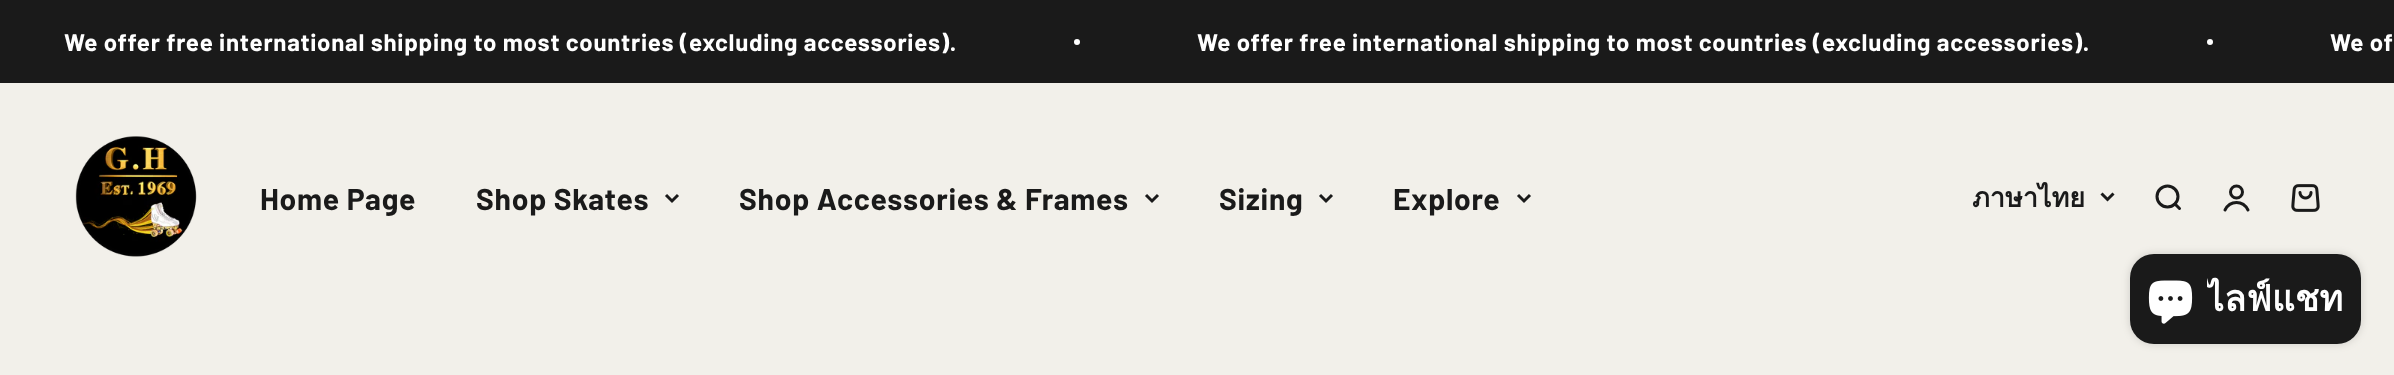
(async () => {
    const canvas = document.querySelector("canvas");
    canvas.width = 2394;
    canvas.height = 375;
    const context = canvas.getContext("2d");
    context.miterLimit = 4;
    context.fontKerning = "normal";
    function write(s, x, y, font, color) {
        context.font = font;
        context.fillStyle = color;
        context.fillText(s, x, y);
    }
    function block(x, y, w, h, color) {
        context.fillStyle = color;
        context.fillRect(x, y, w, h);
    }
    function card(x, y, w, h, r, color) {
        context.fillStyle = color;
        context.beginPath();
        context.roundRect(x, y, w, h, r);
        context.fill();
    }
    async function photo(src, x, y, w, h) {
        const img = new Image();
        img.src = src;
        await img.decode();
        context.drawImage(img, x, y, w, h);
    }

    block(0, 0, 2394, 375, "rgb(242, 240, 234)");
    block(0, 0, 2394, 83, "rgb(26, 26, 26)");
    context.letterSpacing = "0.75px";
    write("We offer free international shipping to most countries (excluding accessories).", 64, 51, "bold 24px Barlow", "rgb(255, 255, 255)");
    context.beginPath();
    context.arc(1077, 42, 3, 0, Math.PI * 2);
    context.fill();
    write("We offer free international shipping to most countries (excluding accessories).", 1197, 51, "bold 24px Barlow", "rgb(255, 255, 255)");
    context.beginPath();
    context.arc(2210, 42, 3, 0, Math.PI * 2);
    context.fill();
    write("We of", 2330, 51, "bold 24px Barlow", "rgb(255, 255, 255)");
    await photo("media/1.png", 75, 136, 122, 121);
    write("Home Page", 260, 210, "bold 30px Barlow", "rgb(26, 26, 26)");
    write("Shop Skates", 476, 210, "bold 30px Barlow", "rgb(26, 26, 26)");
    context.beginPath();
    context.moveTo(666, 195);
    context.lineTo(672, 201);
    context.lineTo(678, 195);
    context.strokeStyle = "rgb(26, 26, 26)";
    context.lineWidth = 3;
    context.stroke();
    write("Shop Accessories & Frames", 739, 210, "bold 30px Barlow", "rgb(26, 26, 26)");
    context.beginPath();
    context.moveTo(1146, 195);
    context.lineTo(1152, 201);
    context.lineTo(1158, 195);
    context.stroke();
    write("Sizing", 1219, 210, "bold 30px Barlow", "rgb(26, 26, 26)");
    context.beginPath();
    context.moveTo(1320, 195);
    context.lineTo(1326, 201);
    context.lineTo(1332, 195);
    context.stroke();
    write("Explore", 1393, 210, "bold 30px Barlow", "rgb(26, 26, 26)");
    context.beginPath();
    context.moveTo(1518, 195);
    context.lineTo(1524, 201);
    context.lineTo(1530, 195);
    context.stroke();
    context.letterSpacing = "0px";
    write("ภาษาไทย", 1972, 207, "bold 27px Loma", "rgb(26, 26, 26)");
    context.beginPath();
    context.moveTo(2101.5, 193.5);
    context.lineTo(2107.5, 199.5);
    context.lineTo(2113.5, 193.5);
    context.stroke();
    context.beginPath();
    context.arc(2167.5, 196.5, 10.5, 0, Math.PI * 2);
    context.stroke();
    context.beginPath();
    context.moveTo(2175, 204);
    context.lineTo(2179.5, 208.5);
    context.lineCap = "round";
    context.lineJoin = "round";
    context.stroke();
    context.beginPath();
    context.arc(2236.5, 192, 6, 0, Math.PI * 2);
    context.stroke();
    context.beginPath();
    context.moveTo(2225, 210);
    context.bezierCurveTo(2230, 200, 2243, 200, 2248, 210);
    context.lineJoin = "miter";
    context.stroke();
    await photo("media/2.png", 2291, 184, 29, 28);
    context.fillStyle = "rgba(0, 0, 0, 0.15)";
    context.filter = "blur(4px)";
    context.beginPath();
    context.roundRect(2130, 254, 231, 90, 24);
    context.fill();
    context.filter = "none";
    card(2130, 254, 231, 90, 24, "rgb(26, 26, 26)");
    await photo("media/3.png", 2148, 280, 45, 44);
    context.save();
    context.beginPath();
    context.rect(2207, 276, 136, 45);
    context.clip();
    write("ไลฟ์แชท", 2206, 311, "bold 36px Loma", "rgb(255, 255, 255)");
    context.restore();
})();
